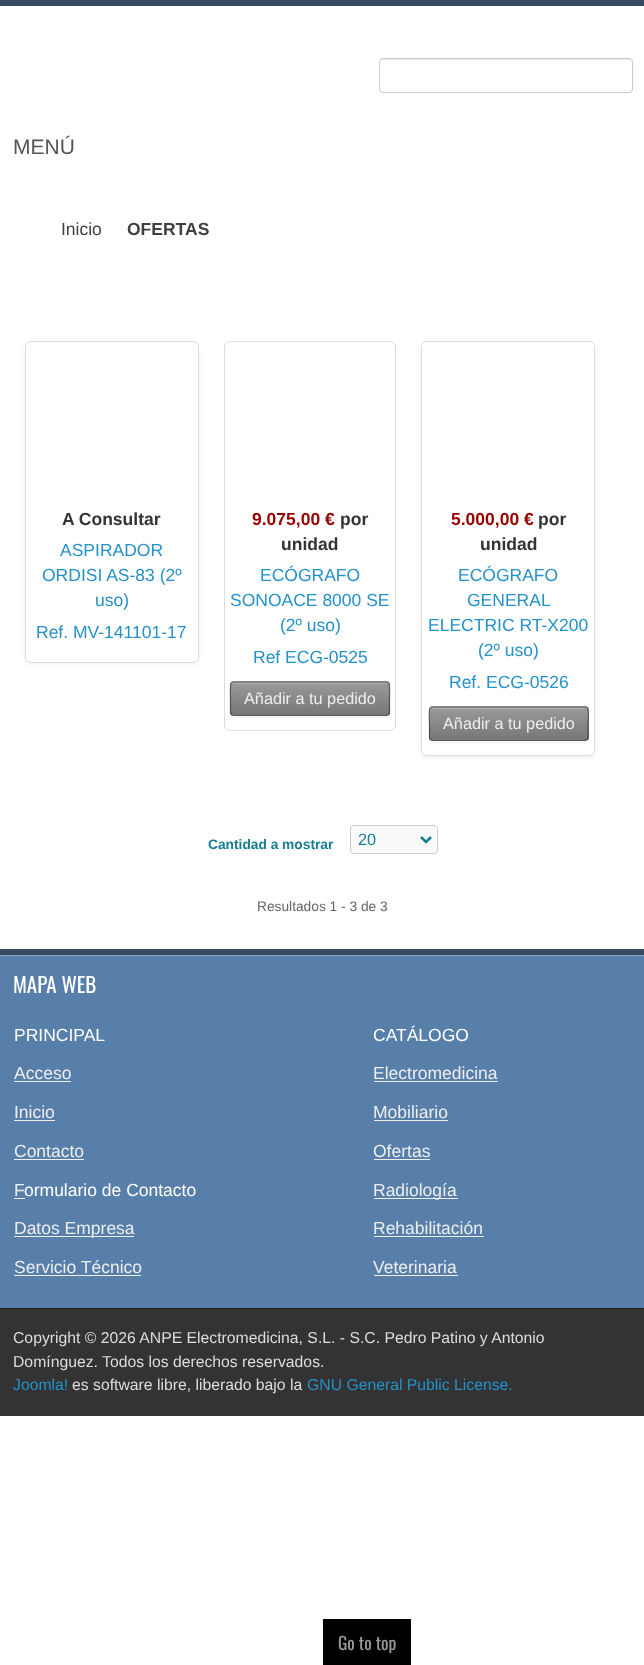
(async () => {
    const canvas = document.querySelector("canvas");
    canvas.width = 644;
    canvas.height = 1665;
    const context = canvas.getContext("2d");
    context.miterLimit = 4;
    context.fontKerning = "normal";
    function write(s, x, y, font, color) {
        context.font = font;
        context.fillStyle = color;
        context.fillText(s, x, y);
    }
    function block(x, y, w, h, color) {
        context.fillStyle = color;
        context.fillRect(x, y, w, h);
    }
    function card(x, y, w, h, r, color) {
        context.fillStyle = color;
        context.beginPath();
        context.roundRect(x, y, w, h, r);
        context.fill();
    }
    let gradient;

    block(0, 0, 644, 1665, "rgb(255, 255, 255)");
    block(0, 0, 644, 6, "rgb(55, 74, 95)");
    context.fillStyle = "rgb(236, 236, 236)";
    context.beginPath();
    context.moveTo(382, 60);
    context.lineTo(629, 60);
    context.bezierCurveTo(630, 60, 631, 61, 631, 62);
    context.bezierCurveTo(631, 60, 630, 59, 628, 59);
    context.lineTo(382, 59);
    context.lineTo(380, 60);
    context.lineTo(380, 62);
    context.bezierCurveTo(380, 61, 381, 60, 382, 60);
    context.closePath();
    context.fill();
    context.beginPath();
    context.roundRect(379.5, 58.5, 253, 34, 3.5);
    context.strokeStyle = "rgb(204, 204, 204)";
    context.stroke();
    write("MENÚ", 13, 154, "21px Liberation Sans", "rgb(85, 85, 85)");
    write("Inicio", 61, 235, "17.5px Liberation Sans", "rgb(64, 64, 64)");
    write("OFERTAS", 127, 235, "bold 17.5px Liberation Sans", "rgb(64, 64, 64)");
    context.fillStyle = "rgba(0, 0, 0, 0.06)";
    context.filter = "blur(2px)";
    context.beginPath();
    context.roundRect(25, 343, 174, 321, 6);
    context.fill();
    context.filter = "none";
    context.fillStyle = "rgb(255, 255, 255)";
    context.beginPath();
    context.roundRect(25.5, 341.5, 173, 321, 5.5);
    context.fill();
    context.strokeStyle = "rgb(221, 221, 221)";
    context.stroke();
    write("A Consultar", 62, 525, "bold 17.5px Liberation Sans", "rgb(51, 51, 51)");
    write("ASPIRADOR", 60, 556, "17.5px Liberation Sans", "rgb(36, 145, 202)");
    write("ORDISI AS-83 (2º", 42, 581, "17.5px Liberation Sans", "rgb(36, 145, 202)");
    write("uso)", 95, 606, "17.5px Liberation Sans", "rgb(36, 145, 202)");
    write("Ref. MV-141101-17", 36, 638, "17.5px Liberation Sans", "rgb(36, 145, 202)");
    context.beginPath();
    context.roundRect(224.5, 341.5, 171, 389, 5.5);
    context.stroke();
    write("9.075,00 €", 252, 525, "bold 17.5px Liberation Sans", "rgb(153, 0, 0)");
    write("por", 340, 525, "bold 17.5px Liberation Sans", "rgb(51, 51, 51)");
    write("unidad", 281, 550, "bold 17.5px Liberation Sans", "rgb(51, 51, 51)");
    write("ECÓGRAFO", 260, 581, "17.5px Liberation Sans", "rgb(36, 145, 202)");
    write("SONOACE 8000 SE", 230, 606, "17.5px Liberation Sans", "rgb(36, 145, 202)");
    write("(2º uso)", 280, 631, "17.5px Liberation Sans", "rgb(36, 145, 202)");
    write("Ref ECG-0525", 253, 663, "17.5px Liberation Sans", "rgb(36, 145, 202)");
    context.fillStyle = "rgba(0, 0, 0, 0.05)";
    context.filter = "blur(1px)";
    context.beginPath();
    context.roundRect(230, 683, 160, 35, 4);
    context.fill();
    context.filter = "none";
    card(230, 681, 160, 35, 4, "rgb(153, 153, 153)");
    context.save();
    context.beginPath();
    context.roundRect(230, 681, 160, 35, 4);
    context.clip();
    gradient = context.createLinearGradient(310, 683, 310, 715);
    gradient.addColorStop(0, "rgb(153, 153, 153)");
    gradient.addColorStop(1, "rgb(119, 119, 119)");
    context.fillStyle = gradient;
    context.fillRect(230, 683, 160, 32);
    context.restore();
    context.fillStyle = "rgb(173, 173, 173)";
    context.beginPath();
    context.moveTo(234, 684);
    context.lineTo(386, 684);
    context.bezierCurveTo(388, 684, 389, 685, 389, 686);
    context.bezierCurveTo(389, 684, 388, 683, 386, 683);
    context.lineTo(234, 683);
    context.bezierCurveTo(232, 683, 231, 684, 231, 686);
    context.bezierCurveTo(231, 685, 232, 684, 234, 684);
    context.closePath();
    context.fill();
    context.beginPath();
    context.moveTo(231.5, 683);
    context.lineTo(234, 682);
    context.lineTo(386.5, 682);
    context.lineTo(388.5, 683);
    context.strokeStyle = "rgba(0, 0, 0, 0.3)";
    context.lineWidth = 1.2;
    context.stroke();
    context.beginPath();
    context.moveTo(388.5, 683);
    context.bezierCurveTo(390.5, 685, 389.5, 696, 389.5, 699);
    context.lineTo(389.5, 708);
    context.bezierCurveTo(389.5, 710.5, 390.5, 715.5, 386, 715.5);
    context.lineTo(234, 715.5);
    context.bezierCurveTo(229.5, 715.5, 230.5, 710.5, 230.5, 708);
    context.lineTo(230.5, 699);
    context.bezierCurveTo(230.5, 696, 229.5, 685, 231.5, 683);
    context.strokeStyle = "rgba(0, 0, 0, 0.4)";
    context.stroke();
    write("Añadir a tu pedido", 244, 704, "16.25px Liberation Sans", "rgb(238, 238, 238)");
    context.fillStyle = "rgba(0, 0, 0, 0.06)";
    context.filter = "blur(2px)";
    context.beginPath();
    context.roundRect(421, 343, 174, 415, 6);
    context.fill();
    context.filter = "none";
    context.fillStyle = "rgb(255, 255, 255)";
    context.beginPath();
    context.roundRect(421.5, 341.5, 173, 414, 5.5);
    context.fill();
    context.strokeStyle = "rgb(221, 221, 221)";
    context.lineWidth = 1;
    context.stroke();
    write("5.000,00 €", 451, 525, "bold 17.5px Liberation Sans", "rgb(153, 0, 0)");
    write("por", 538, 525, "bold 17.5px Liberation Sans", "rgb(51, 51, 51)");
    write("unidad", 480, 550, "bold 17.5px Liberation Sans", "rgb(51, 51, 51)");
    write("ECÓGRAFO", 458, 581, "17.5px Liberation Sans", "rgb(36, 145, 202)");
    write("GENERAL", 467, 606, "17.5px Liberation Sans", "rgb(36, 145, 202)");
    write("ELECTRIC RT-X200", 428, 631, "17.5px Liberation Sans", "rgb(36, 145, 202)");
    write("(2º uso)", 478, 656, "17.5px Liberation Sans", "rgb(36, 145, 202)");
    write("Ref. ECG-0526", 449, 688, "17.5px Liberation Sans", "rgb(36, 145, 202)");
    context.fillStyle = "rgba(0, 0, 0, 0.05)";
    context.filter = "blur(1px)";
    context.beginPath();
    context.roundRect(429, 708, 160, 35, 4);
    context.fill();
    context.filter = "none";
    card(429, 706, 160, 35, 4, "rgb(153, 153, 153)");
    context.save();
    context.beginPath();
    context.roundRect(429, 706, 160, 35, 4);
    context.clip();
    gradient = context.createLinearGradient(509, 708, 509, 740);
    gradient.addColorStop(0, "rgb(153, 153, 153)");
    gradient.addColorStop(1, "rgb(119, 119, 119)");
    context.fillStyle = gradient;
    context.fillRect(429, 708, 160, 32);
    context.restore();
    context.fillStyle = "rgb(173, 173, 173)";
    context.beginPath();
    context.moveTo(432, 709);
    context.lineTo(585, 709);
    context.bezierCurveTo(586, 709, 588, 710, 588, 711);
    context.bezierCurveTo(588, 709, 587, 708, 586, 708);
    context.lineTo(432, 708);
    context.bezierCurveTo(431, 708, 430, 709, 430, 711);
    context.bezierCurveTo(430, 710, 431, 709, 432, 709);
    context.closePath();
    context.fill();
    context.beginPath();
    context.moveTo(430.5, 708);
    context.lineTo(432.5, 707);
    context.lineTo(585.5, 707);
    context.lineTo(587, 708);
    context.strokeStyle = "rgba(0, 0, 0, 0.3)";
    context.lineWidth = 1.2;
    context.stroke();
    context.beginPath();
    context.moveTo(587, 708);
    context.bezierCurveTo(589.5, 710, 588, 721, 588, 724);
    context.lineTo(588, 733);
    context.bezierCurveTo(588, 735.5, 589, 740.5, 585, 740.5);
    context.lineTo(432.5, 740.5);
    context.bezierCurveTo(428.5, 740.5, 429.5, 735.5, 429.5, 733);
    context.lineTo(429.5, 724);
    context.bezierCurveTo(429.5, 721, 428, 710, 430.5, 708);
    context.strokeStyle = "rgba(0, 0, 0, 0.4)";
    context.stroke();
    write("Añadir a tu pedido", 443, 729, "16.25px Liberation Sans", "rgb(238, 238, 238)");
    write("Cantidad a mostrar", 208, 849, "bold 13.75px Liberation Sans", "rgb(22, 126, 147)");
    context.fillStyle = "rgb(250, 250, 250)";
    context.beginPath();
    context.roundRect(350.5, 825.5, 87, 28, 3.5);
    context.fill();
    context.strokeStyle = "rgb(204, 204, 204)";
    context.lineWidth = 1;
    context.stroke();
    context.beginPath();
    context.moveTo(421, 837);
    context.lineTo(426, 842);
    context.lineTo(431, 837);
    context.strokeStyle = "rgb(22, 126, 147)";
    context.lineWidth = 2.5;
    context.stroke();
    write("20", 358, 845, "16.25px Liberation Sans", "rgb(22, 126, 147)");
    write("Resultados 1 - 3 de 3", 257, 911, "13.75px Liberation Sans", "rgb(102, 102, 102)");
    block(0, 956, 644, 352, "rgb(87, 127, 170)");
    block(0, 955, 644, 1, "rgb(137, 165, 196)");
    block(0, 949, 644, 6, "rgb(55, 74, 95)");
    write("MAPA WEB", 13, 993, "21px Oswald", "rgb(255, 255, 255)");
    write("PRINCIPAL", 14, 1041, "17.5px Liberation Sans", "rgb(255, 255, 255)");
    write("Acceso", 14, 1079, "17.5px Liberation Sans", "rgb(238, 238, 238)");
    block(14, 1081, 57, 1, "rgb(238, 238, 238)");
    write("Inicio", 14, 1118, "17.5px Liberation Sans", "rgb(238, 238, 238)");
    block(14, 1120, 41, 1, "rgb(238, 238, 238)");
    write("Contacto", 14, 1157, "17.5px Liberation Sans", "rgb(238, 238, 238)");
    block(14, 1159, 70, 1, "rgb(238, 238, 238)");
    write("F", 14, 1196, "17.5px Liberation Sans", "rgb(238, 238, 238)");
    block(14, 1198, 11, 1, "rgb(238, 238, 238)");
    write("ormulario de Contacto", 24, 1196, "17.5px Liberation Sans", "rgb(255, 255, 255)");
    block(14, 1236, 120, 1, "rgb(238, 238, 238)");
    write("Datos Empresa", 14, 1234, "17.5px Liberation Sans", "rgb(238, 238, 238)");
    write("Servicio Técnico", 14, 1273, "17.5px Liberation Sans", "rgb(238, 238, 238)");
    block(14, 1275, 127, 1, "rgb(238, 238, 238)");
    write("CATÁLOGO", 373, 1041, "17.5px Liberation Sans", "rgb(255, 255, 255)");
    write("Electromedicina", 373, 1079, "17.5px Liberation Sans", "rgb(238, 238, 238)");
    block(374, 1081, 124, 1, "rgb(238, 238, 238)");
    write("Mobiliario", 373, 1118, "17.5px Liberation Sans", "rgb(238, 238, 238)");
    block(374, 1120, 74, 1, "rgb(238, 238, 238)");
    write("Ofertas", 373, 1157, "17.5px Liberation Sans", "rgb(238, 238, 238)");
    block(374, 1159, 56, 1, "rgb(238, 238, 238)");
    block(374, 1198, 84, 1, "rgb(238, 238, 238)");
    write("Radiología", 373, 1196, "17.5px Liberation Sans", "rgb(238, 238, 238)");
    write("Rehabilitación", 373, 1234, "17.5px Liberation Sans", "rgb(238, 238, 238)");
    block(374, 1236, 110, 1, "rgb(238, 238, 238)");
    write("Veterinaria", 373, 1273, "17.5px Liberation Sans", "rgb(238, 238, 238)");
    block(374, 1275, 84, 1, "rgb(238, 238, 238)");
    block(0, 1309, 644, 107, "rgb(51, 51, 51)");
    block(0, 1308, 644, 1, "rgb(34, 34, 34)");
    write("Copyright © 2026 ANPE Electromedicina, S.L. - S.C. Pedro Patino y Antonio", 13, 1343, "15.75px Liberation Sans", "rgb(221, 221, 221)");
    write("Domínguez. Todos los derechos reservados.", 13, 1367, "15.75px Liberation Sans", "rgb(221, 221, 221)");
    write("Joomla!", 13, 1390, "15.75px Liberation Sans", "rgb(36, 145, 202)");
    write("es software libre, liberado bajo la", 72, 1390, "15.75px Liberation Sans", "rgb(221, 221, 221)");
    write("GNU General Public License.", 307, 1390, "15.75px Liberation Sans", "rgb(36, 145, 202)");
    block(323, 1619, 88, 46, "rgb(0, 0, 0)");
    write("Go to top", 338, 1650, "17.5px Oswald", "rgb(153, 153, 153)");
})();
